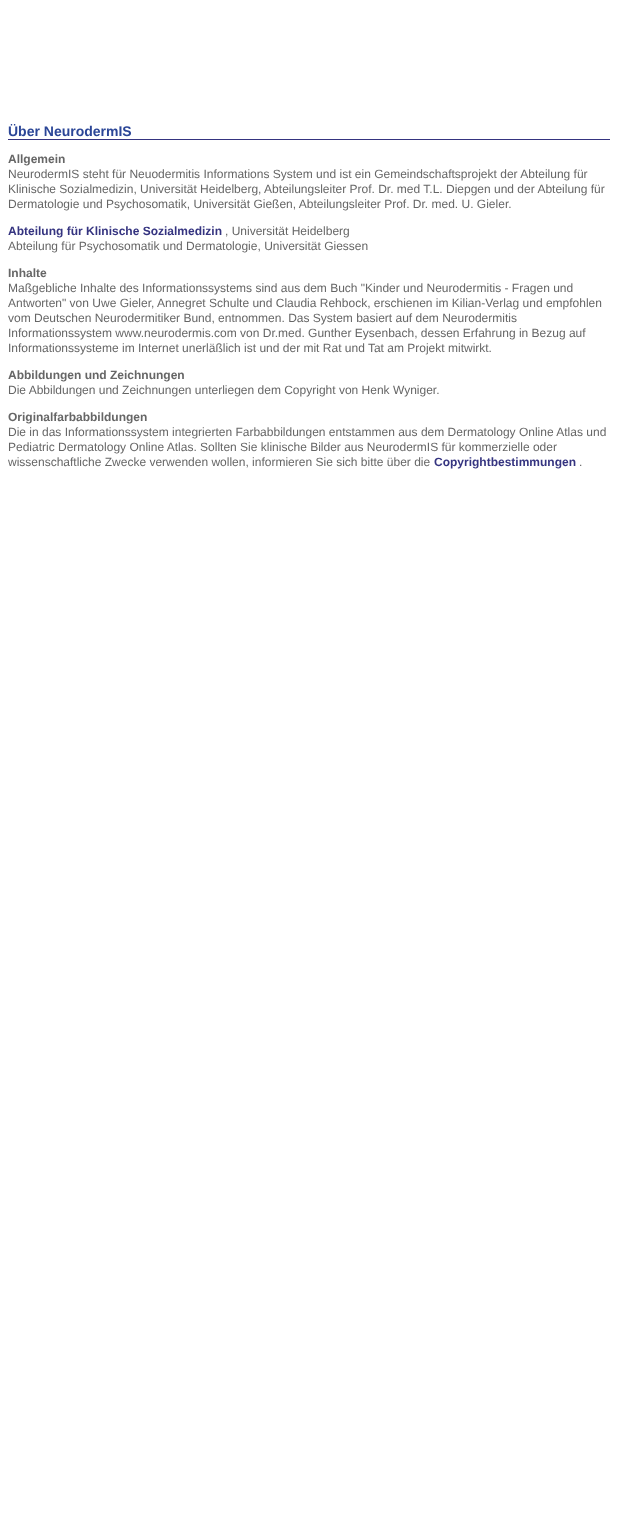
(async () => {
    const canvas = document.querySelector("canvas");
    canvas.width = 618;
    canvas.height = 1531;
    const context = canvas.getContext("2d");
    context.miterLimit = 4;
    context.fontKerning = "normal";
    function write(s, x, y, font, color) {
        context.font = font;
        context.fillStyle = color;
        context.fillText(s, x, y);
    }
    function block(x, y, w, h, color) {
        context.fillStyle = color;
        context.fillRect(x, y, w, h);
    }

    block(0, 0, 618, 1531, "rgb(255, 255, 255)");
    write("Über NeurodermIS", 8, 136, "bold 14px Liberation Sans", "rgb(43, 70, 151)");
    block(8, 139, 602, 1, "rgb(53, 52, 128)");
    write("Allgemein", 8, 163, "bold 12px Liberation Sans", "rgb(102, 102, 102)");
    write("NeurodermIS steht für Neuodermitis Informations System und ist ein Gemeindschaftsprojekt der Abteilung für", 8, 178, "12px Liberation Sans", "rgb(102, 102, 102)");
    write("Klinische Sozialmedizin, Universität Heidelberg, Abteilungsleiter Prof. Dr. med T.L. Diepgen und der Abteilung für", 8, 193, "12px Liberation Sans", "rgb(102, 102, 102)");
    write("Dermatologie und Psychosomatik, Universität Gießen, Abteilungsleiter Prof. Dr. med. U. Gieler.", 8, 208, "12px Liberation Sans", "rgb(102, 102, 102)");
    write("Abteilung für Klinische Sozialmedizin", 8, 235, "bold 12px Liberation Sans", "rgb(53, 52, 128)");
    write(", Universität Heidelberg", 225, 235, "12px Liberation Sans", "rgb(102, 102, 102)");
    write("Abteilung für Psychosomatik und Dermatologie, Universität Giessen", 8, 250, "12px Liberation Sans", "rgb(102, 102, 102)");
    write("Inhalte", 8, 277, "bold 12px Liberation Sans", "rgb(102, 102, 102)");
    write("Maßgebliche Inhalte des Informationssystems sind aus dem Buch \"Kinder und Neurodermitis - Fragen und", 8, 292, "12px Liberation Sans", "rgb(102, 102, 102)");
    write("Antworten\" von Uwe Gieler, Annegret Schulte und Claudia Rehbock, erschienen im Kilian-Verlag und empfohlen", 8, 307, "12px Liberation Sans", "rgb(102, 102, 102)");
    write("vom Deutschen Neurodermitiker Bund, entnommen. Das System basiert auf dem Neurodermitis", 8, 322, "12px Liberation Sans", "rgb(102, 102, 102)");
    write("Informationssystem www.neurodermis.com von Dr.med. Gunther Eysenbach, dessen Erfahrung in Bezug auf", 8, 337, "12px Liberation Sans", "rgb(102, 102, 102)");
    write("Informationssysteme im Internet unerläßlich ist und der mit Rat und Tat am Projekt mitwirkt.", 8, 352, "12px Liberation Sans", "rgb(102, 102, 102)");
    write("Abbildungen und Zeichnungen", 8, 379, "bold 12px Liberation Sans", "rgb(102, 102, 102)");
    write("Die Abbildungen und Zeichnungen unterliegen dem Copyright von Henk Wyniger.", 8, 394, "12px Liberation Sans", "rgb(102, 102, 102)");
    write("Originalfarbabbildungen", 8, 421, "bold 12px Liberation Sans", "rgb(102, 102, 102)");
    write("Die in das Informationssystem integrierten Farbabbildungen entstammen aus dem Dermatology Online Atlas und", 8, 436, "12px Liberation Sans", "rgb(102, 102, 102)");
    write("Pediatric Dermatology Online Atlas. Sollten Sie klinische Bilder aus NeurodermIS für kommerzielle oder", 8, 451, "12px Liberation Sans", "rgb(102, 102, 102)");
    write("wissenschaftliche Zwecke verwenden wollen, informieren Sie sich bitte über die", 8, 466, "12px Liberation Sans", "rgb(102, 102, 102)");
    write("Copyrightbestimmungen", 434, 466, "bold 12px Liberation Sans", "rgb(53, 52, 128)");
    write(".", 579, 466, "12px Liberation Sans", "rgb(102, 102, 102)");
})();
